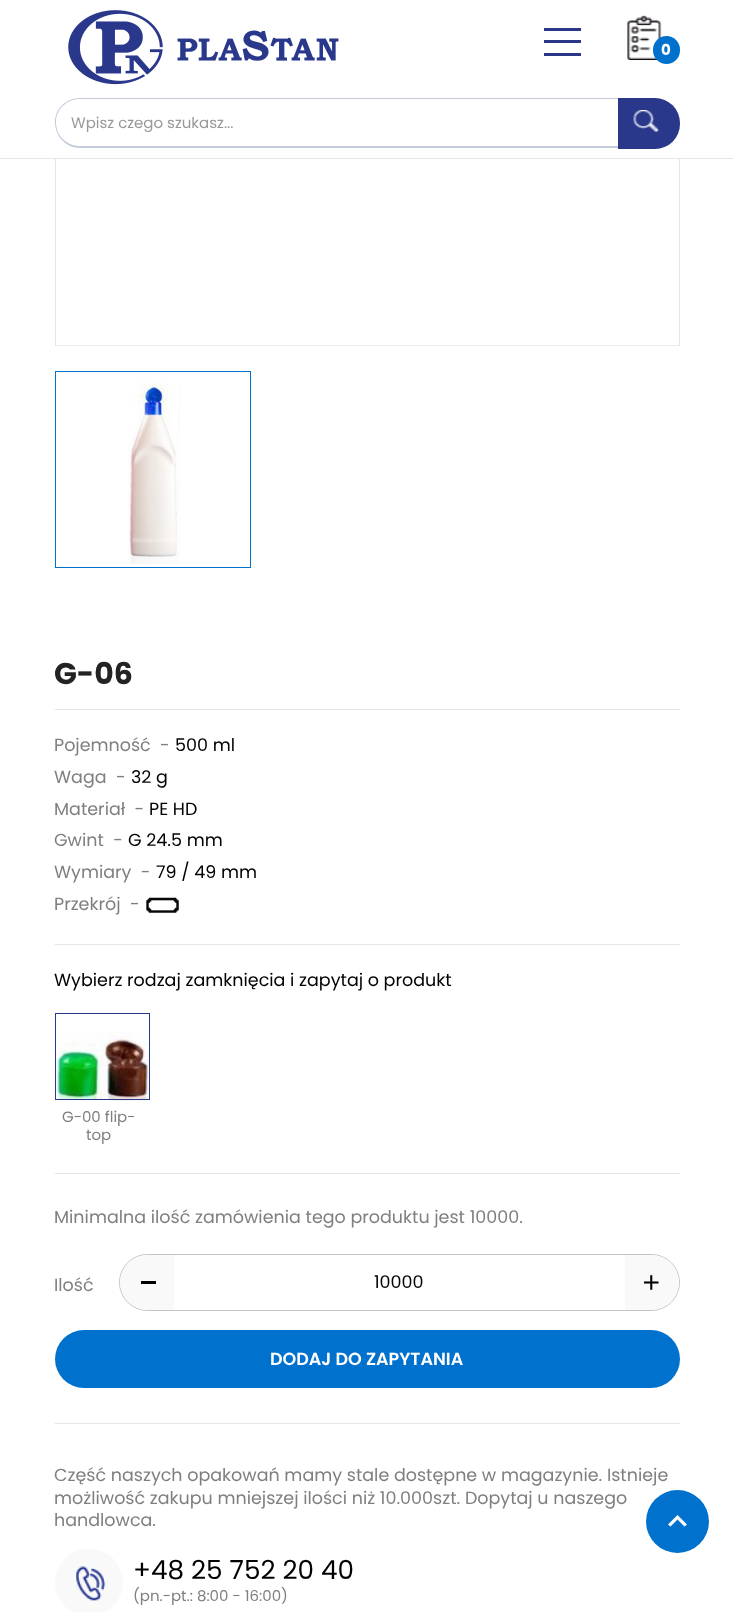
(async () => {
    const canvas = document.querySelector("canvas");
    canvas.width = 733;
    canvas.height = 1612;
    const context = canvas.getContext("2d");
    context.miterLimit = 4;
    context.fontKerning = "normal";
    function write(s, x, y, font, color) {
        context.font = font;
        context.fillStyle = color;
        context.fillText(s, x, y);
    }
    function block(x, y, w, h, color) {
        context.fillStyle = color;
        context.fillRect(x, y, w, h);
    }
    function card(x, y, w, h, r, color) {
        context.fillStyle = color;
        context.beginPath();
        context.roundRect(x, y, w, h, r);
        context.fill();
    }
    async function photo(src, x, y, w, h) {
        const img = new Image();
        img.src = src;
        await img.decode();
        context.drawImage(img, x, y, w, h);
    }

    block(0, 0, 733, 1612, "rgb(255, 255, 255)");
    context.strokeStyle = "rgb(229, 229, 229)";
    context.strokeRect(55.5, -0.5, 624, 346);
    block(55, 0, 625, 158, "rgb(255, 255, 255)");
    block(0, 158, 733, 1, "rgb(229, 229, 229)");
    await photo("media/1.png", 68, 10, 271, 75);
    block(544, 28, 37, 3, "rgb(42, 56, 140)");
    block(544, 40, 37, 3, "rgb(42, 56, 140)");
    block(544, 53, 37, 3, "rgb(42, 56, 140)");
    await photo("media/2.png", 627, 15, 35, 45);
    card(653, 36, 27, 28, 13.5, "rgb(0, 114, 206)");
    write("0", 661, 55, "bold 15px Poppins", "rgb(255, 255, 255)");
    context.fillStyle = "rgb(196, 202, 218)";
    context.beginPath();
    context.moveTo(80, 98);
    context.lineTo(619, 98);
    context.lineTo(619, 148);
    context.lineTo(80, 148);
    context.bezierCurveTo(66, 148, 55, 136, 55, 122);
    context.bezierCurveTo(55, 109, 66, 98, 80, 98);
    context.closePath();
    context.moveTo(80, 99);
    context.lineTo(619, 99);
    context.lineTo(619, 146);
    context.lineTo(80, 146);
    context.bezierCurveTo(67, 146, 56, 136, 56, 122);
    context.bezierCurveTo(56, 109, 67, 99, 80, 99);
    context.closePath();
    context.fill("evenodd");
    write("Wpisz czego szukasz...", 71, 128, "15px Poppins", "rgb(153, 153, 153)");
    context.fillStyle = "rgb(42, 56, 140)";
    context.beginPath();
    context.roundRect(618, 98, 62, 51, [0, 25, 25, 0]);
    context.fill();
    await photo("media/3.png", 633, 110, 26, 23);
    await photo("media/4.png", 56, 159, 623, 187);
    context.strokeStyle = "rgb(0, 114, 206)";
    context.strokeRect(55.5, 371.5, 195, 196);
    await photo("media/5.png", 128, 383, 52, 182);
    block(55, 709, 625, 1, "rgb(229, 229, 229)");
    write("G-06", 54, 684, "bold 30px Poppins", "rgb(35, 35, 35)");
    write("Pojemność  -", 54, 751, "17.5px Poppins", "rgb(127, 127, 127)");
    write("500 ml", 175, 751, "17.5px Poppins", "rgb(0, 0, 0)");
    write("Waga  -", 54, 783, "17.5px Poppins", "rgb(127, 127, 127)");
    write("32 g", 131, 783, "17.5px Poppins", "rgb(0, 0, 0)");
    write("Materiał  -", 54, 815, "17.5px Poppins", "rgb(127, 127, 127)");
    write("PE HD", 149, 815, "17.5px Poppins", "rgb(0, 0, 0)");
    write("Gwint  -", 54, 846, "17.5px Poppins", "rgb(127, 127, 127)");
    write("G 24.5 mm", 128, 846, "17.5px Poppins", "rgb(0, 0, 0)");
    write("Wymiary  -", 54, 878, "17.5px Poppins", "rgb(127, 127, 127)");
    write("79 / 49 mm", 156, 878, "17.5px Poppins", "rgb(0, 0, 0)");
    write("Przekrój  -", 54, 910, "17.5px Poppins", "rgb(127, 127, 127)");
    await photo("media/6.png", 146, 897, 33, 16);
    block(55, 944, 625, 1, "rgb(229, 229, 229)");
    write("Wybierz rodzaj zamknięcia i zapytaj o produkt", 54, 986, "17.5px Poppins", "rgb(0, 0, 0)");
    await photo("media/7.png", 56, 1032, 93, 69);
    context.strokeStyle = "rgb(42, 56, 140)";
    context.strokeRect(55.5, 1013.5, 94, 86);
    write("G-00 flip-", 62, 1122, "15px Poppins", "rgb(127, 127, 127)");
    write("top", 86, 1140, "15px Poppins", "rgb(127, 127, 127)");
    block(55, 1173, 625, 1, "rgb(229, 229, 229)");
    write("Minimalna ilość zamówienia tego produktu jest 10000.", 54, 1223, "17.5px Poppins", "rgb(127, 127, 127)");
    write("Ilość", 54, 1291, "17.5px Poppins", "rgb(127, 127, 127)");
    context.beginPath();
    context.roundRect(119.5, 1254.5, 560, 56, 28);
    context.strokeStyle = "rgb(195, 195, 195)";
    context.stroke();
    context.fillStyle = "rgb(249, 249, 249)";
    context.beginPath();
    context.roundRect(120, 1255, 54, 55, [27.5, 0, 0, 27.5]);
    context.fill();
    block(141, 1281, 15, 3, "rgb(0, 0, 0)");
    context.fillStyle = "rgb(249, 249, 249)";
    context.beginPath();
    context.roundRect(625, 1255, 54, 55, [0, 27.5, 27.5, 0]);
    context.fill();
    await photo("media/8.png", 643, 1275, 16, 15);
    write("10000", 374, 1288, "17.5px Poppins", "rgb(0, 0, 0)");
    card(55, 1330, 625, 58, 29, "rgb(0, 114, 206)");
    write("DODAJ DO ZAPYTANIA", 270, 1365, "600 17.5px Poppins", "rgb(255, 255, 255)");
    block(55, 1423, 625, 1, "rgb(229, 229, 229)");
    write("Część naszych opakowań mamy stale dostępne w magazynie. Istnieje", 54, 1481, "17.5px Poppins", "rgb(127, 127, 127)");
    write("możliwość zakupu mniejszej ilości niż 10.000szt. Dopytaj u naszego", 54, 1504, "17.5px Poppins", "rgb(127, 127, 127)");
    write("handlowca.", 54, 1526, "17.5px Poppins", "rgb(127, 127, 127)");
    card(55, 1549, 68, 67, 33.5, "rgb(249, 249, 249)");
    await photo("media/9.png", 76, 1566, 30, 35);
    write("+48 25 752 20 40", 133, 1579, "26.25px Poppins", "rgb(0, 0, 0)");
    write("(pn.-pt.: 8:00 - 16:00)", 133, 1601, "15px Poppins", "rgb(127, 127, 127)");
    context.fillStyle = "rgb(0, 114, 206)";
    context.beginPath();
    context.arc(677.5, 1521.5, 31.5, 0, Math.PI * 2);
    context.fill();
    context.fillStyle = "rgb(255, 255, 255)";
    context.beginPath();
    context.moveTo(670.5, 1526.5);
    context.lineTo(668, 1524.5);
    context.lineTo(677.5, 1515);
    context.lineTo(687, 1524.5);
    context.lineTo(684.5, 1526.5);
    context.lineTo(677.5, 1519.5);
    context.closePath();
    context.fill();
})();
